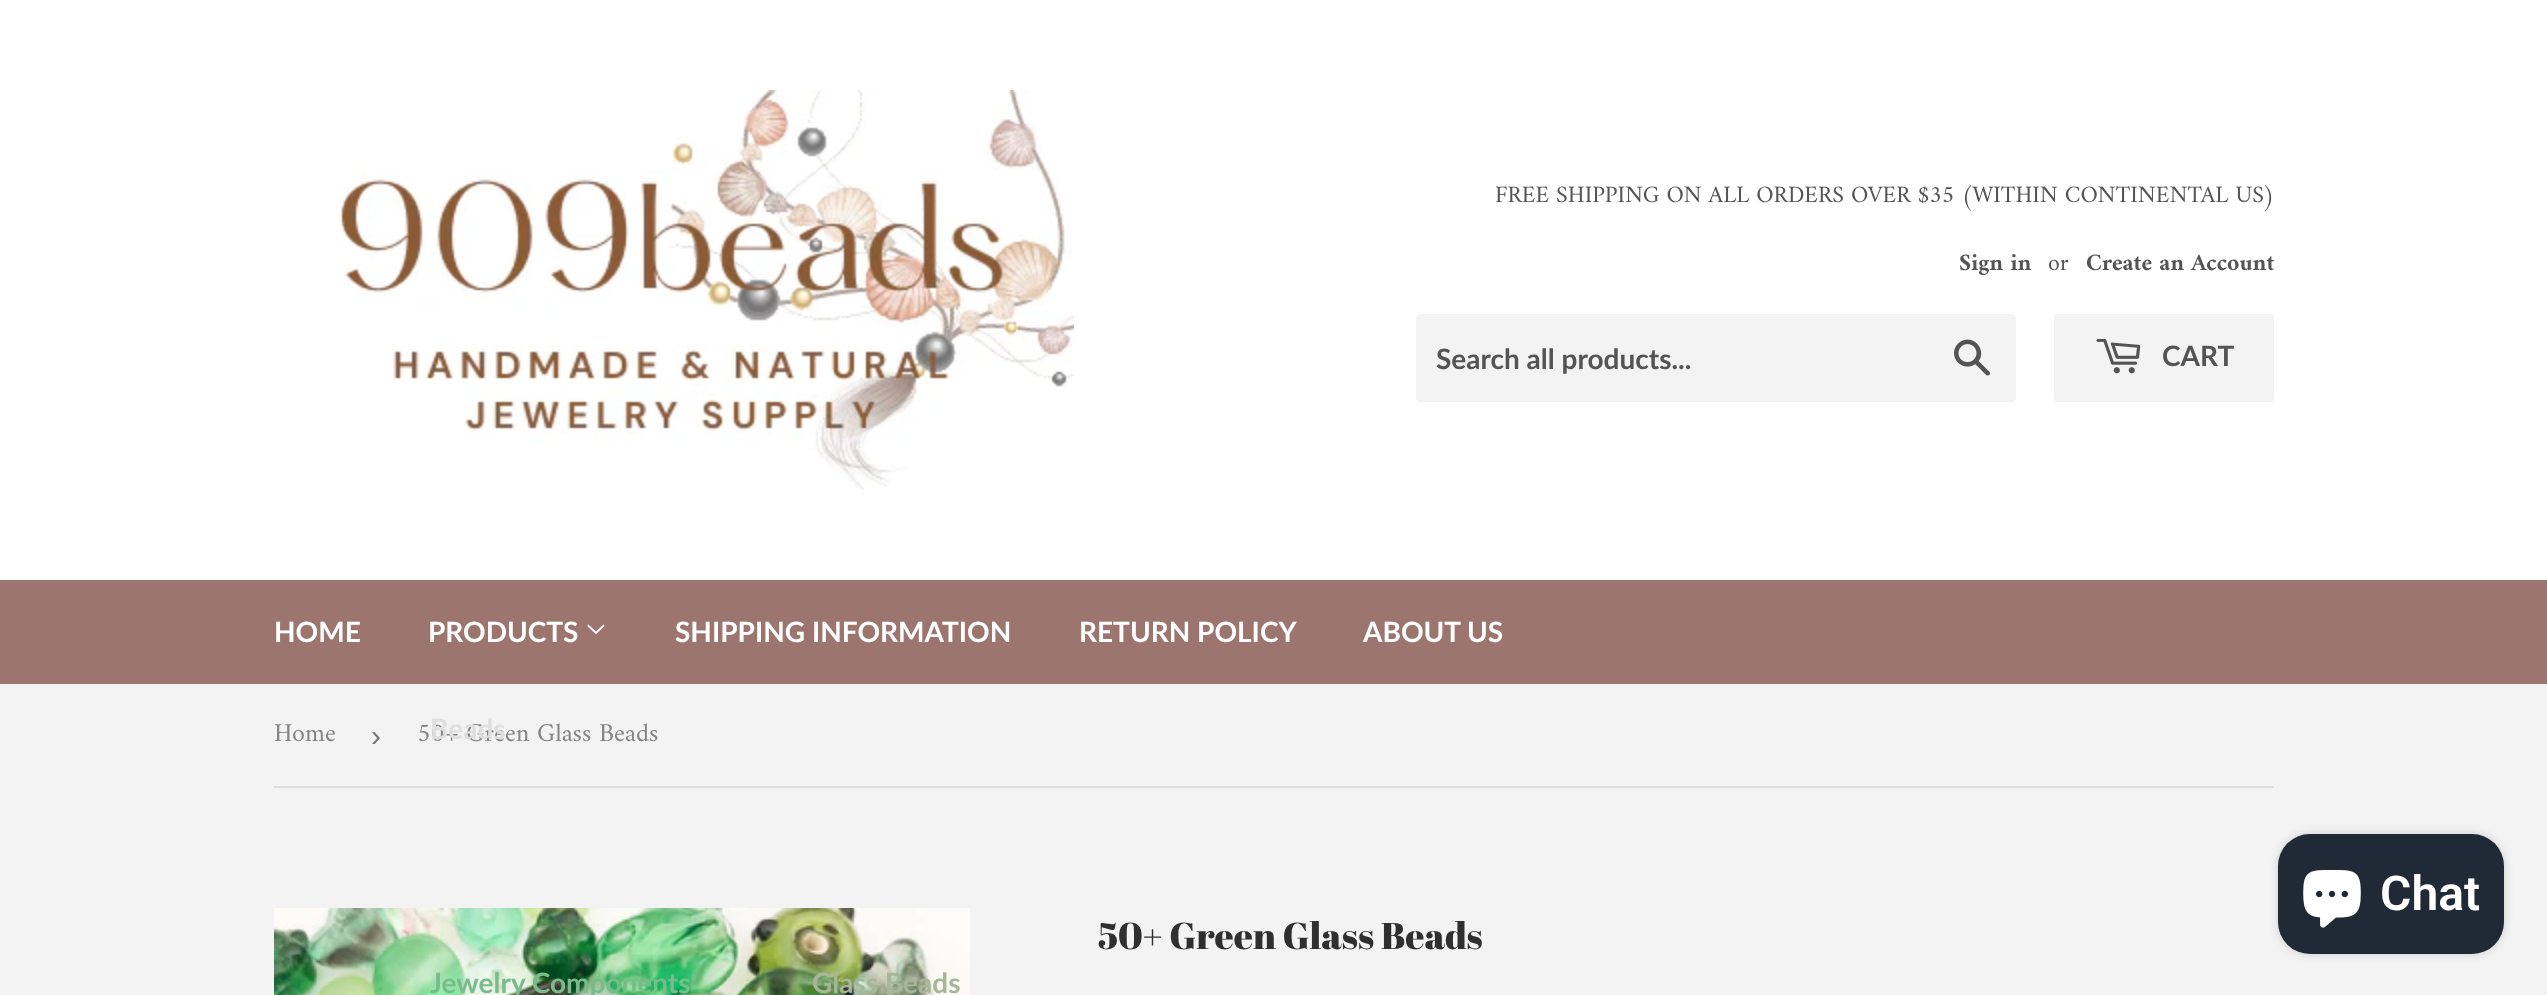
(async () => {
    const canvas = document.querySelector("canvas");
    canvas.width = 2547;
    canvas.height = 995;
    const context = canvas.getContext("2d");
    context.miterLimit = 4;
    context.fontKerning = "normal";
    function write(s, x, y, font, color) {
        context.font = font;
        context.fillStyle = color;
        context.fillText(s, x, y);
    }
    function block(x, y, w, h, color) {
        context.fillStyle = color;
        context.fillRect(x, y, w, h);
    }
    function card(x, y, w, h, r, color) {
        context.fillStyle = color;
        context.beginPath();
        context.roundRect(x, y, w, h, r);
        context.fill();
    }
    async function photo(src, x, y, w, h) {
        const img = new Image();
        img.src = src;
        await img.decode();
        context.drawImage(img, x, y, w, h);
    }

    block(0, 0, 2547, 995, "rgb(243, 243, 243)");
    block(0, 0, 2547, 580, "rgb(255, 255, 255)");
    await photo("media/1.png", 339, 90, 735, 400);
    write("FREE SHIPPING ON ALL ORDERS OVER $35 (WITHIN CONTINENTAL US)", 1495, 202, "23.8px Amiri", "rgb(84, 84, 84)");
    write("Sign in", 1959, 270, "bold 23.8px Amiri", "rgb(84, 84, 84)");
    write("or", 2048, 270, "23.8px Amiri", "rgb(84, 84, 84)");
    write("Create an Account", 2086, 270, "bold 23.8px Amiri", "rgb(84, 84, 84)");
    card(1416, 314, 600, 88, 4, "rgb(243, 243, 243)");
    write("Search all products...", 1436, 369, "bold 28px Lato", "rgb(84, 84, 84)");
    await photo("media/2.png", 1954, 339, 36, 37);
    card(2054, 314, 220, 88, 4, "rgb(243, 243, 243)");
    await photo("media/3.png", 2096, 339, 45, 35);
    write("CART", 2162, 366, "bold 28px Lato", "rgb(84, 84, 84)");
    block(0, 580, 2547, 104, "rgb(156, 117, 111)");
    write("HOME", 274, 642, "bold 28px Lato", "rgb(255, 255, 255)");
    write("PRODUCTS", 428, 642, "bold 28px Lato", "rgb(255, 255, 255)");
    await photo("media/4.png", 587, 624, 18, 10);
    write("50+ Green Glass Beads", 417, 741, "26px Amiri", "rgb(133, 133, 133)");
    write("Beads", 430, 739, "bold 28px Lato", "rgb(223, 223, 223)");
    await photo("media/5.png", 274, 908, 696, 87);
    write("Glass Beads", 812, 993, "bold 28px Lato", "rgb(166, 182, 152)");
    write("Jewelry Components", 430, 993, "bold 28px Lato", "rgb(121, 187, 139)");
    write("SHIPPING INFORMATION", 675, 642, "bold 28px Lato", "rgb(255, 255, 255)");
    write("RETURN POLICY", 1079, 642, "bold 28px Lato", "rgb(255, 255, 255)");
    write("ABOUT US", 1363, 642, "bold 28px Lato", "rgb(255, 255, 255)");
    block(274, 786, 2000, 2, "rgb(222, 222, 222)");
    write("Home", 274, 741, "26px Amiri", "rgb(133, 133, 133)");
    write("›", 371, 746, "30px Liberation Sans", "rgb(118, 118, 118)");
    write("50+ Green Glass Beads", 1098, 949, "37.25px Abril Fatface", "rgb(47, 47, 47)");
    context.fillStyle = "rgba(0, 0, 0, 0.15)";
    context.filter = "blur(5px)";
    context.beginPath();
    context.roundRect(2278, 834, 226, 120, 32);
    context.fill();
    context.filter = "none";
    card(2278, 834, 226, 120, 32, "rgb(32, 42, 54)");
    await photo("media/6.png", 2303, 870, 58, 58);
    write("Chat", 2380, 910, "600 48px Roboto", "rgb(255, 255, 255)");
})();
